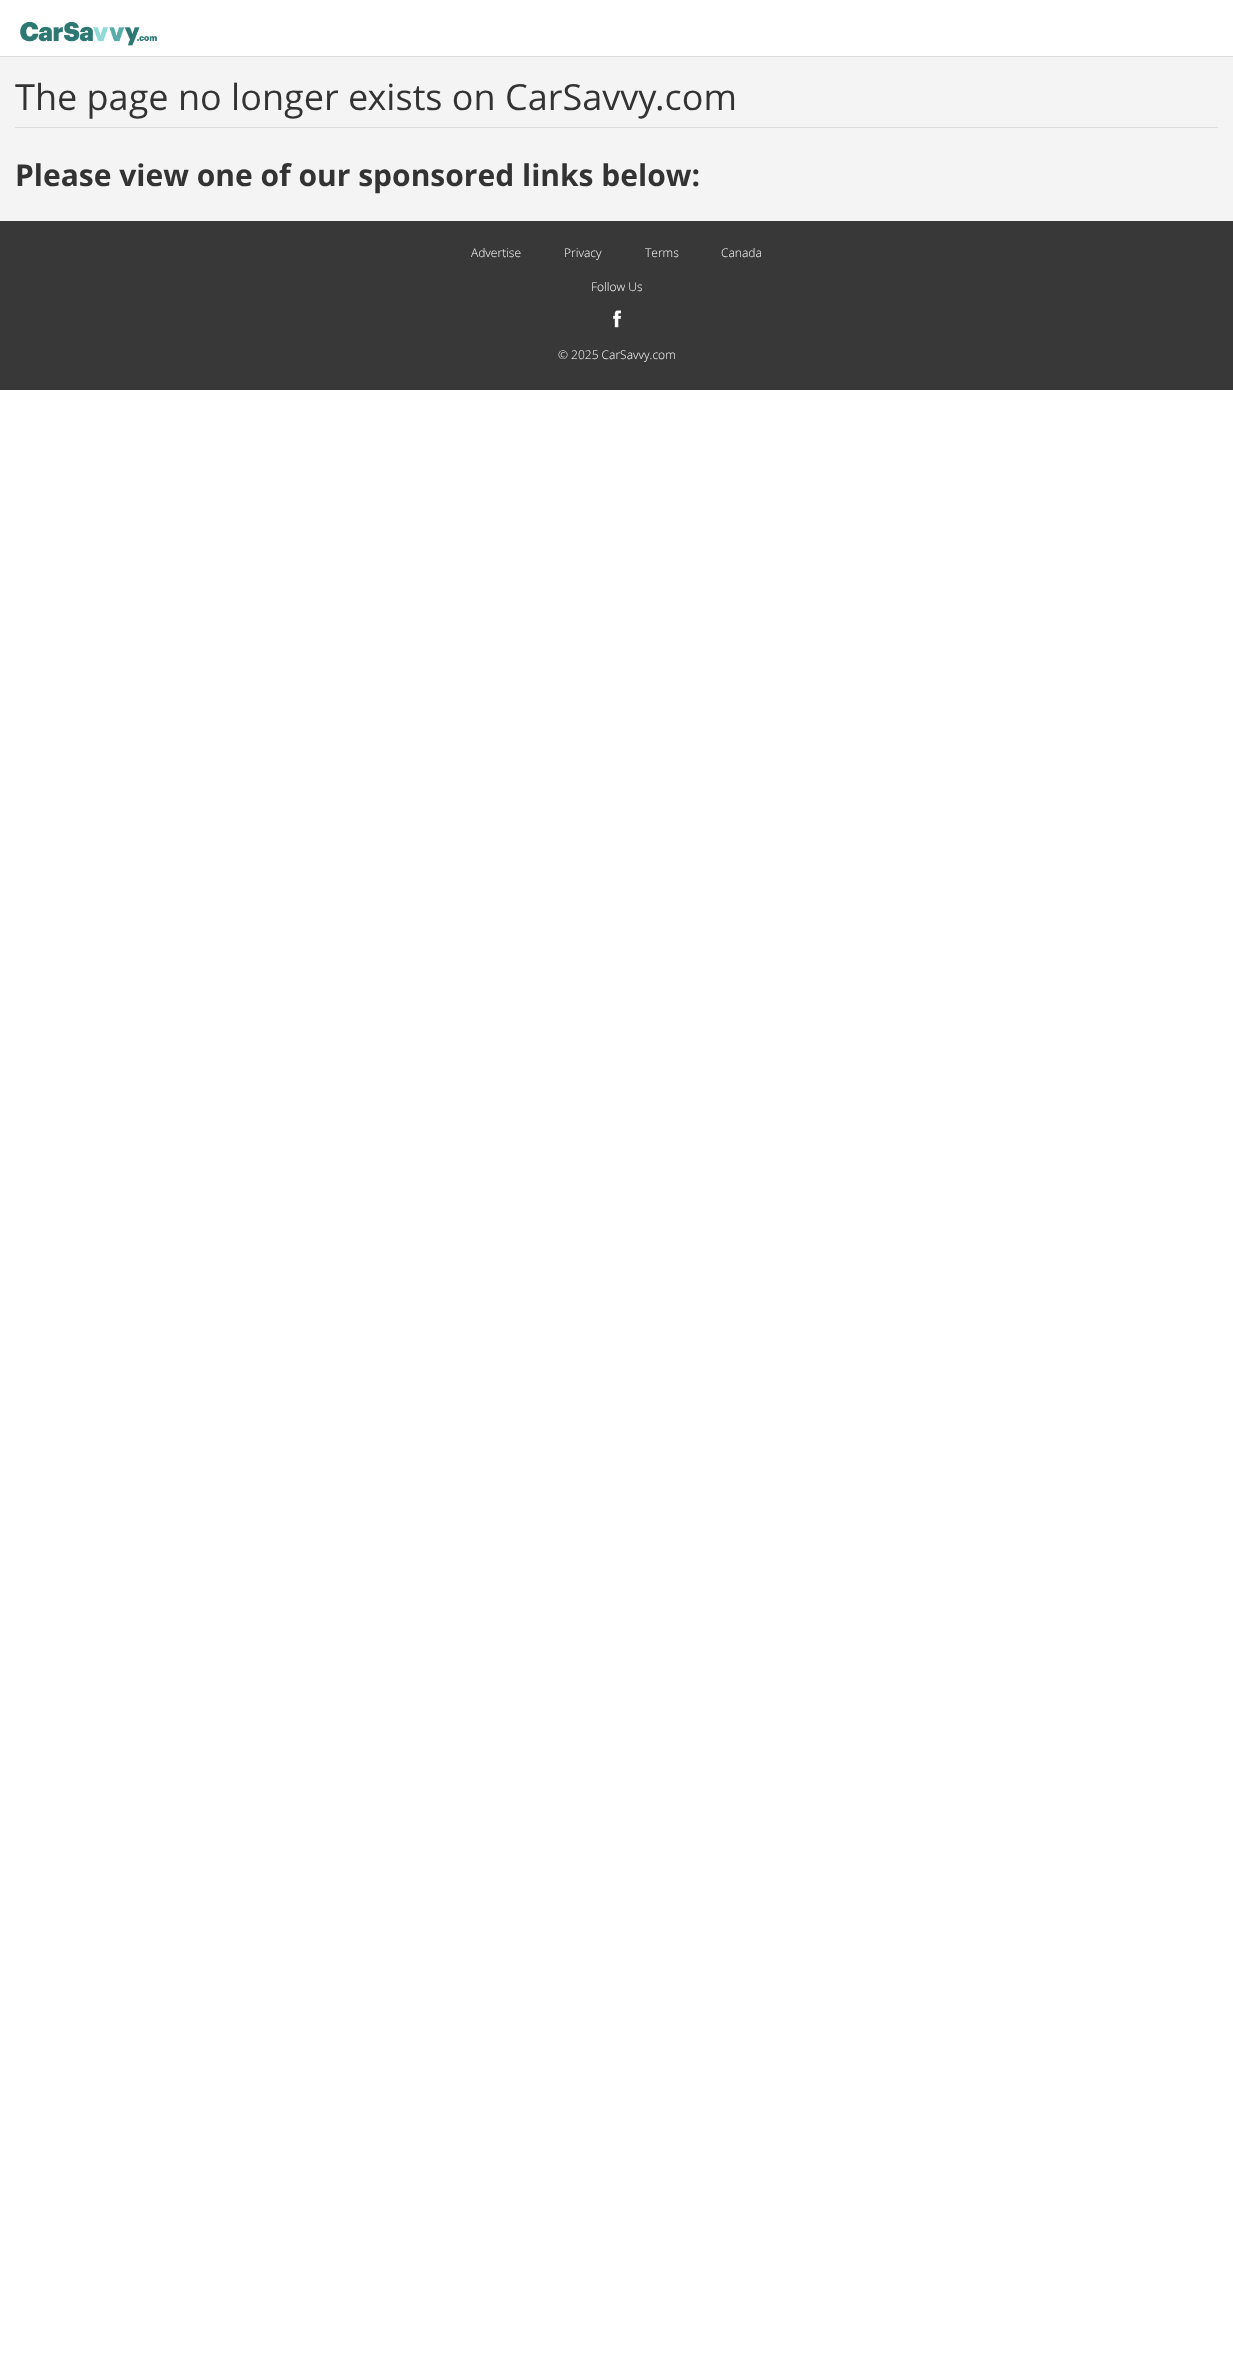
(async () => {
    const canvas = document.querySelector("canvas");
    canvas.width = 1233;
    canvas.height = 2359;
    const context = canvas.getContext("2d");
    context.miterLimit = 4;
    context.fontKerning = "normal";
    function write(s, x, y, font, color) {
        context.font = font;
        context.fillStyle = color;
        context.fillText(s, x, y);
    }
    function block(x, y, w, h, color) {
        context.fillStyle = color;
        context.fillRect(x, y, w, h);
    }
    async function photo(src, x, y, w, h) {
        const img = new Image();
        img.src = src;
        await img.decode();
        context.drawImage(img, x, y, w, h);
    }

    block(0, 0, 1233, 2359, "rgb(255, 255, 255)");
    block(0, 57, 1233, 164, "rgb(244, 244, 244)");
    block(0, 56, 1233, 1, "rgb(221, 221, 221)");
    await photo("media/1.png", 20, 21, 137, 25);
    block(15, 127, 1203, 1, "rgb(221, 221, 221)");
    write("The page no longer exists on CarSavvy.com", 15, 110, "36px Open Sans", "rgb(51, 51, 51)");
    write("Please view one of our sponsored links below:", 15, 186, "bold 30px Open Sans", "rgb(51, 51, 51)");
    block(0, 221, 1233, 169, "rgb(56, 56, 56)");
    write("Advertise", 471, 257, "300 12px Open Sans", "rgb(255, 255, 255)");
    write("Privacy", 564, 257, "300 12px Open Sans", "rgb(255, 255, 255)");
    write("Terms", 645, 257, "300 12px Open Sans", "rgb(255, 255, 255)");
    write("Canada", 721, 257, "300 12px Open Sans", "rgb(255, 255, 255)");
    write("Follow Us", 591, 291, "300 12px Open Sans", "rgb(255, 255, 255)");
    await photo("media/2.png", 613, 310, 8, 18);
    write("© 2025 CarSavvy.com", 558, 359, "300 12px Open Sans", "rgb(255, 255, 255)");
})();
